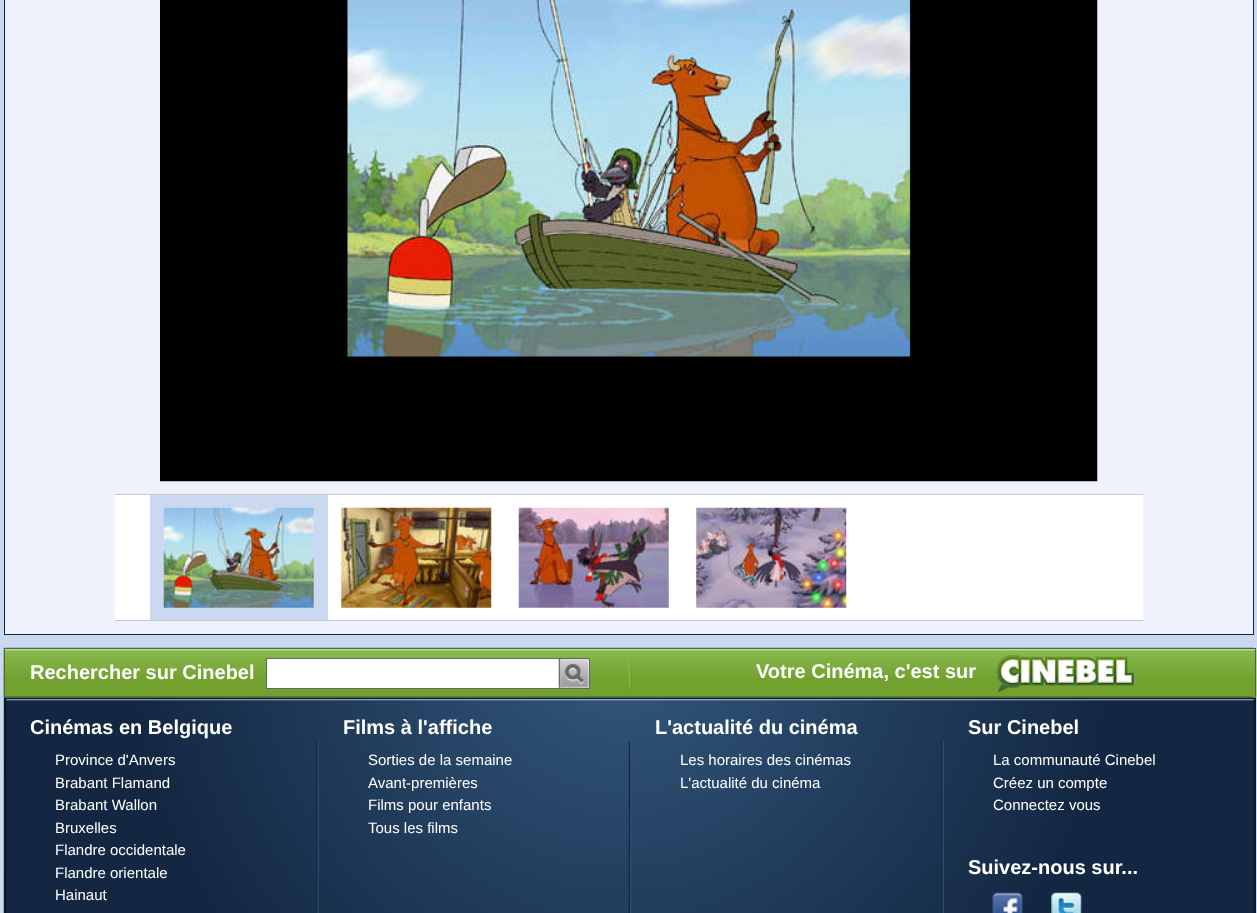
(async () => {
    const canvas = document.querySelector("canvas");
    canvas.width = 1257;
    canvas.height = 913;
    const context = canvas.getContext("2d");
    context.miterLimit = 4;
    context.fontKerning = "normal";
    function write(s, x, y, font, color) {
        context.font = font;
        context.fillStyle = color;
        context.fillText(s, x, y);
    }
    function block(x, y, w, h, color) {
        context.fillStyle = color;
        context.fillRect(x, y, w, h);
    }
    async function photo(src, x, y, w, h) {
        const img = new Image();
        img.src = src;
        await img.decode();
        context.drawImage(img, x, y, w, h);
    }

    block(0, 0, 1257, 913, "rgb(202, 217, 239)");
    context.strokeStyle = "rgb(16, 38, 69)";
    context.strokeRect(4.5, -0.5, 1249, 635);
    block(5, 0, 1248, 634, "rgb(239, 242, 253)");
    await photo("media/1.png", 160, 0, 938, 482);
    block(115, 495, 1028, 125, "rgb(255, 255, 255)");
    block(115, 494, 1028, 1, "rgb(197, 199, 204)");
    block(115, 620, 1028, 1, "rgb(197, 199, 204)");
    block(150, 495, 178, 125, "rgb(202, 217, 239)");
    await photo("media/2.png", 163, 507, 151, 101);
    await photo("media/3.png", 341, 507, 151, 101);
    await photo("media/4.png", 518, 507, 151, 101);
    await photo("media/5.png", 696, 507, 151, 101);
    await photo("media/6.png", 3, 647, 1251, 266);
    await photo("media/7.png", 3, 649, 1254, 48);
    context.strokeStyle = "rgb(74, 106, 40)";
    context.strokeRect(4.5, 648.5, 1251, 49);
    write("Rechercher sur Cinebel", 30, 679, "bold 20px Liberation Sans", "rgb(255, 255, 255)");
    context.beginPath();
    context.rect(266.5, 658.5, 323, 30);
    context.fill();
    context.strokeStyle = "rgb(102, 102, 102)";
    context.stroke();
    await photo("media/8.png", 558, 659, 31, 29);
    await photo("media/9.png", 628, 660, 4, 37);
    write("Votre Cinéma, c'est sur", 756, 678, "bold 20px Liberation Sans", "rgb(255, 255, 255)");
    await photo("media/10.png", 996, 654, 139, 39);
    await photo("media/11.png", 5, 699, 1250, 214);
    block(4, 698, 1252, 1, "rgb(11, 26, 44)");
    block(1255, 698, 1, 215, "rgb(11, 26, 44)");
    block(4, 698, 1, 215, "rgb(11, 26, 44)");
    write("Cinémas en Belgique", 30, 734, "bold 20px Liberation Sans", "rgb(255, 255, 255)");
    write("Province d'Anvers", 55, 765, "15px Liberation Sans", "rgb(255, 255, 255)");
    write("Brabant Flamand", 55, 788, "15px Liberation Sans", "rgb(255, 255, 255)");
    write("Brabant Wallon", 55, 810, "15px Liberation Sans", "rgb(255, 255, 255)");
    write("Bruxelles", 55, 833, "15px Liberation Sans", "rgb(255, 255, 255)");
    write("Flandre occidentale", 55, 855, "15px Liberation Sans", "rgb(255, 255, 255)");
    write("Flandre orientale", 55, 878, "15px Liberation Sans", "rgb(255, 255, 255)");
    write("Hainaut", 55, 900, "15px Liberation Sans", "rgb(255, 255, 255)");
    write("Films à l'affiche", 343, 734, "bold 20px Liberation Sans", "rgb(255, 255, 255)");
    write("Sorties de la semaine", 368, 765, "15px Liberation Sans", "rgb(255, 255, 255)");
    write("Avant-premières", 368, 788, "15px Liberation Sans", "rgb(255, 255, 255)");
    write("Films pour enfants", 368, 810, "15px Liberation Sans", "rgb(255, 255, 255)");
    write("Tous les films", 368, 833, "15px Liberation Sans", "rgb(255, 255, 255)");
    write("L'actualité du cinéma", 655, 734, "bold 20px Liberation Sans", "rgb(255, 255, 255)");
    write("Les horaires des cinémas", 680, 765, "15px Liberation Sans", "rgb(255, 255, 255)");
    write("L'actualité du cinéma", 680, 788, "15px Liberation Sans", "rgb(255, 255, 255)");
    write("Sur Cinebel", 968, 734, "bold 20px Liberation Sans", "rgb(255, 255, 255)");
    write("La communauté Cinebel", 993, 765, "15px Liberation Sans", "rgb(255, 255, 255)");
    write("Créez un compte", 993, 788, "15px Liberation Sans", "rgb(255, 255, 255)");
    write("Connectez vous", 993, 810, "15px Liberation Sans", "rgb(255, 255, 255)");
    write("Suivez-nous sur...", 968, 874, "bold 20px Liberation Sans", "rgb(255, 255, 255)");
    await photo("media/12.png", 992, 892, 31, 21);
    await photo("media/13.png", 1051, 892, 31, 21);
})();
